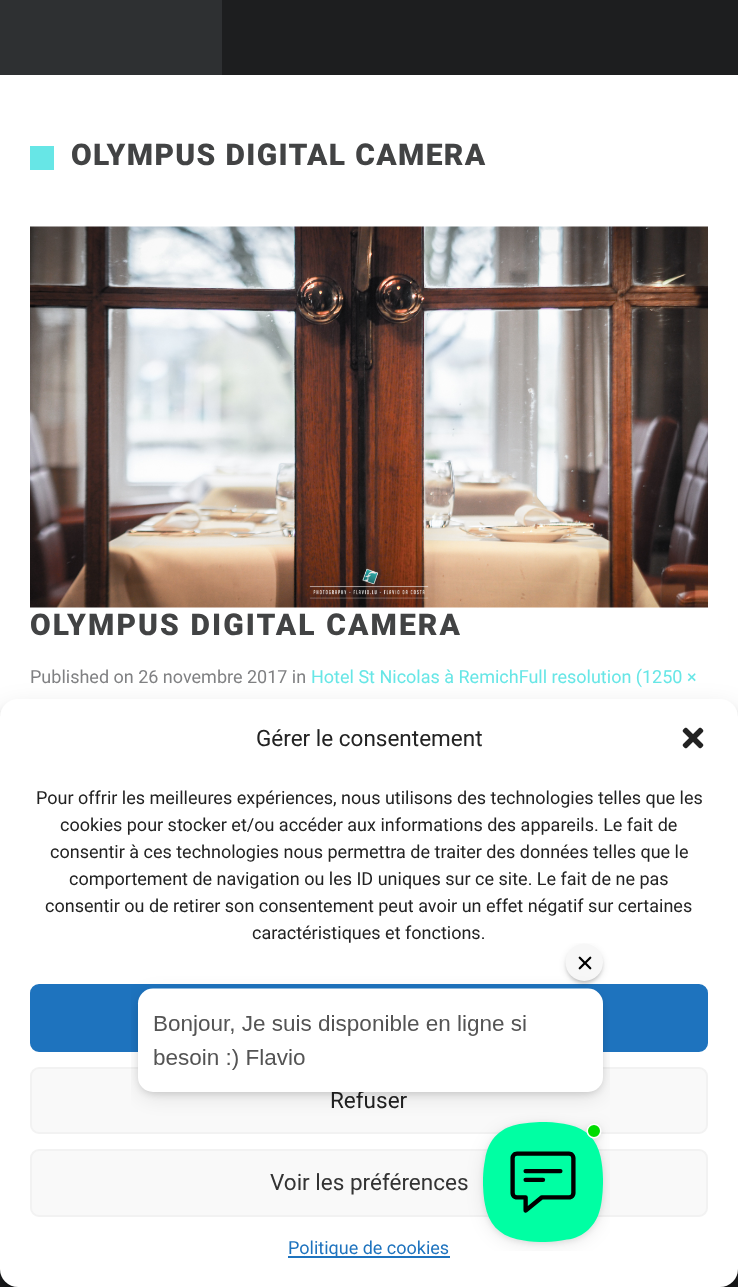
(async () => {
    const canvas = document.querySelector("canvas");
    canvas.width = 738;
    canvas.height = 1287;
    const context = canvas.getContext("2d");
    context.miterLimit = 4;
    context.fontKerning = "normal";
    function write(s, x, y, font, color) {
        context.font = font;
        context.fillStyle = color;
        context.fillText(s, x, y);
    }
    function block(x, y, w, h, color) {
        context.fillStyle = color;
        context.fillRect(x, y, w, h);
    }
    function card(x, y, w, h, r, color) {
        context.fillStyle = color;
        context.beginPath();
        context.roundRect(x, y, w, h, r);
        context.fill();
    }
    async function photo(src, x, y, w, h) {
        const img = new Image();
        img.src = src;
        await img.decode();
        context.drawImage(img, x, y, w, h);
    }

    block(0, 0, 738, 1287, "rgb(255, 255, 255)");
    block(222, 0, 516, 75, "rgb(29, 30, 31)");
    block(0, 0, 222, 75, "rgb(46, 48, 50)");
    block(30, 146, 24, 24, "rgb(103, 230, 230)");
    context.letterSpacing = "1.35px";
    write("OLYMPUS DIGITAL CAMERA", 71, 165, "900 30px Roboto", "rgb(66, 67, 68)");
    await photo("media/1.png", 30, 226, 678, 382);
    context.letterSpacing = "2.1px";
    write("OLYMPUS DIGITAL CAMERA", 30, 635, "900 30px Roboto", "rgb(66, 67, 68)");
    context.letterSpacing = "0px";
    write("Published on 26 novembre 2017 in", 30, 683, "18px Roboto", "rgb(128, 129, 131)");
    write("Hotel St Nicolas à RemichFull resolution (1250 ×", 311, 683, "18px Roboto", "rgb(103, 230, 230)");
    block(0, 1269, 738, 18, "rgb(29, 30, 31)");
    context.fillStyle = "rgba(0, 0, 0, 0.23)";
    context.filter = "blur(4.5px)";
    context.beginPath();
    context.roundRect(0, 708, 738, 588, 18);
    context.fill();
    context.filter = "none";
    context.fillStyle = "rgba(0, 0, 0, 0.19)";
    context.filter = "blur(15px)";
    context.beginPath();
    context.roundRect(0, 714, 738, 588, 18);
    context.fill();
    context.filter = "none";
    card(0, 699, 738, 588, 18, "rgb(255, 255, 255)");
    write("Gérer le consentement", 256, 746, "22.5px Roboto", "rgb(34, 34, 34)");
    await photo("media/2.png", 682, 727, 22, 22);
    write("Pour offrir les meilleures expériences, nous utilisons des technologies telles que les", 36, 804, "18px Roboto", "rgb(34, 34, 34)");
    write("cookies pour stocker et/ou accéder aux informations des appareils. Le fait de", 60, 831, "18px Roboto", "rgb(34, 34, 34)");
    write("consentir à ces technologies nous permettra de traiter des données telles que le", 50, 858, "18px Roboto", "rgb(34, 34, 34)");
    write("comportement de navigation ou les ID uniques sur ce site. Le fait de ne pas", 69, 885, "18px Roboto", "rgb(34, 34, 34)");
    write("consentir ou de retirer son consentement peut avoir un effet négatif sur certaines", 45, 912, "18px Roboto", "rgb(34, 34, 34)");
    write("caractéristiques et fonctions.", 252, 939, "18px Roboto", "rgb(34, 34, 34)");
    context.fillStyle = "rgb(30, 115, 190)";
    context.beginPath();
    context.roundRect(31, 985, 676, 66, 8);
    context.fill();
    context.strokeStyle = "rgb(30, 115, 190)";
    context.lineWidth = 2;
    context.stroke();
    context.fillStyle = "rgb(249, 249, 249)";
    context.beginPath();
    context.roundRect(31, 1068, 676, 65, 8);
    context.fill();
    context.strokeStyle = "rgb(242, 242, 242)";
    context.stroke();
    write("Refuser", 330, 1108, "22.5px Roboto", "rgb(34, 34, 34)");
    context.fillStyle = "rgb(249, 249, 249)";
    context.beginPath();
    context.roundRect(31, 1150, 676, 66, 8);
    context.fill();
    context.stroke();
    write("Voir les préférences", 270, 1190, "22.5px Roboto", "rgb(51, 51, 51)");
    block(288, 1256, 162, 2, "rgb(30, 115, 190)");
    write("Politique de cookies", 288, 1254, "18px Roboto", "rgb(30, 115, 190)");
    await photo("media/3.png", 131, 943, 479, 308);
})();
